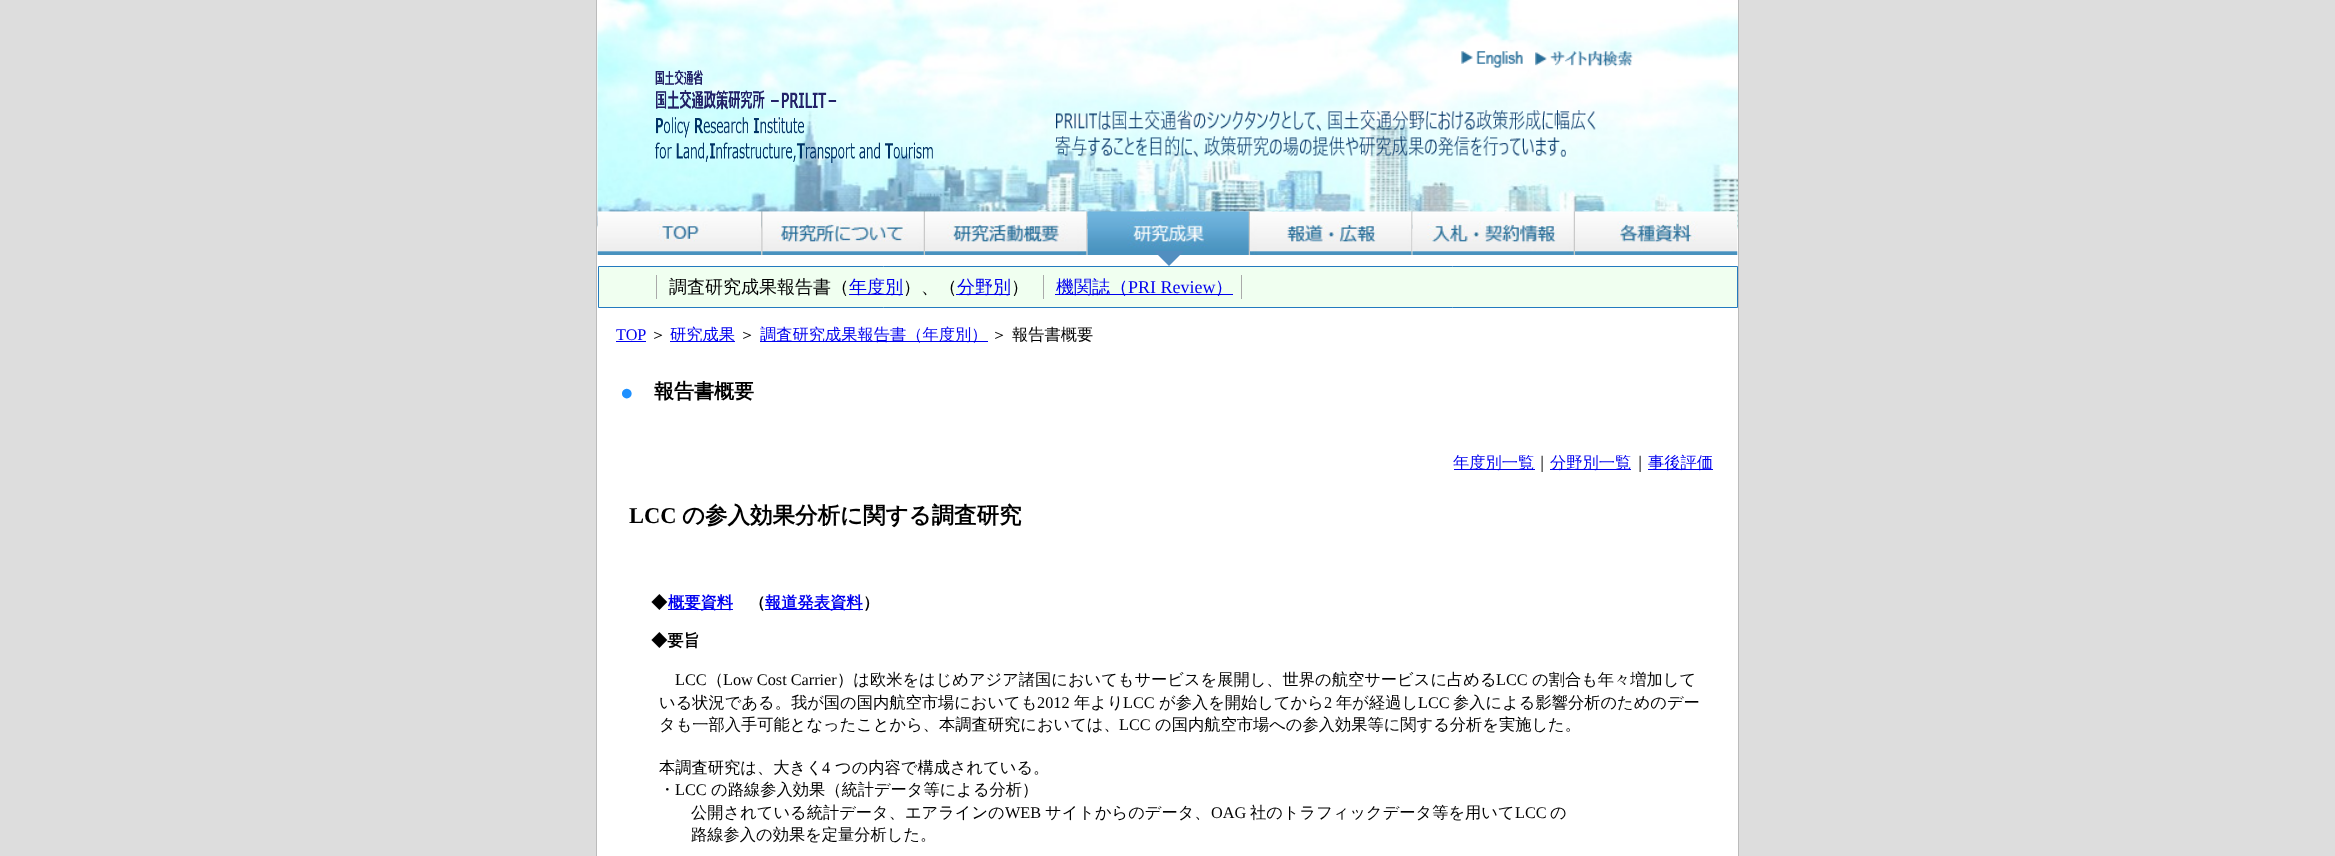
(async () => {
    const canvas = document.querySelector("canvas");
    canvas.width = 2335;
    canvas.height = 856;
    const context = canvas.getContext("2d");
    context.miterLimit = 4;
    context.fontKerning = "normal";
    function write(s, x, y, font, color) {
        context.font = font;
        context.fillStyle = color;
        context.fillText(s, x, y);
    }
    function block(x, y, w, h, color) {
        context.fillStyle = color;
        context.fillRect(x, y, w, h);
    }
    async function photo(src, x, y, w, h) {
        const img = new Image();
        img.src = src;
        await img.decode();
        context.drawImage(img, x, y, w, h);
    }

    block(0, 0, 2335, 856, "rgb(221, 221, 221)");
    block(597, 0, 1141, 856, "rgb(255, 255, 255)");
    await photo("media/1.png", 597, 0, 1141, 229);
    block(1738, 0, 1, 856, "rgb(187, 187, 187)");
    block(596, 0, 1, 856, "rgb(187, 187, 187)");
    await photo("media/2.png", 1461, 51, 62, 17);
    await photo("media/3.png", 1535, 51, 98, 16);
    await photo("media/4.png", 655, 70, 278, 93);
    await photo("media/5.png", 1055, 110, 541, 47);
    await photo("media/6.png", 597, 211, 165, 44);
    await photo("media/7.png", 761, 211, 164, 44);
    await photo("media/8.png", 925, 211, 163, 44);
    await photo("media/9.png", 1087, 211, 163, 44);
    await photo("media/10.png", 1250, 211, 163, 44);
    await photo("media/11.png", 1412, 211, 163, 44);
    await photo("media/12.png", 1575, 211, 163, 44);
    context.fillStyle = "rgb(82, 142, 192)";
    context.beginPath();
    context.moveTo(1154, 251);
    context.lineTo(1184, 251);
    context.lineTo(1169, 266);
    context.closePath();
    context.fill();
    context.fillStyle = "rgb(240, 255, 240)";
    context.beginPath();
    context.rect(598.5, 266.5, 1139, 41);
    context.fill();
    context.strokeStyle = "rgb(35, 122, 191)";
    context.stroke();
    block(656, 275, 1, 24, "rgb(170, 170, 170)");
    write("調査研究成果報告書（", 669, 293, "500 18px WenQuanYi Zen Hei", "rgb(0, 0, 0)");
    block(849, 294, 54, 1, "rgb(0, 0, 238)");
    write("年度別", 849, 293, "500 18px WenQuanYi Zen Hei", "rgb(0, 0, 238)");
    write("）、（", 903, 293, "500 18px WenQuanYi Zen Hei", "rgb(0, 0, 0)");
    block(956, 294, 54, 1, "rgb(0, 0, 238)");
    write("分野別", 957, 293, "500 18px WenQuanYi Zen Hei", "rgb(0, 0, 238)");
    write("）", 1011, 293, "500 18px WenQuanYi Zen Hei", "rgb(0, 0, 0)");
    block(1241, 275, 1, 24, "rgb(170, 170, 170)");
    block(1043, 275, 1, 24, "rgb(170, 170, 170)");
    block(1055, 294, 178, 1, "rgb(0, 0, 238)");
    write("機関誌（", 1056, 293, "500 18px WenQuanYi Zen Hei", "rgb(0, 0, 238)");
    write("PRI Review", 1128, 293, "18px Liberation Serif", "rgb(0, 0, 238)");
    write("）", 1215, 293, "500 18px WenQuanYi Zen Hei", "rgb(0, 0, 238)");
    write("TOP", 616, 340, "16.25px Liberation Serif", "rgb(0, 0, 238)");
    block(616, 341, 30, 1, "rgb(0, 0, 238)");
    write("＞", 650, 340, "500 16.25px WenQuanYi Zen Hei", "rgb(0, 0, 0)");
    block(670, 341, 65, 1, "rgb(0, 0, 238)");
    write("研究成果", 670, 340, "500 16.25px WenQuanYi Zen Hei", "rgb(0, 0, 238)");
    write("＞", 739, 340, "500 16.25px WenQuanYi Zen Hei", "rgb(0, 0, 0)");
    block(760, 341, 228, 1, "rgb(0, 0, 238)");
    write("調査研究成果報告書（年度別）", 760, 340, "500 16.25px WenQuanYi Zen Hei", "rgb(0, 0, 238)");
    write("＞ 報告書概要", 991, 340, "500 16.25px WenQuanYi Zen Hei", "rgb(0, 0, 0)");
    write("●", 620, 400, "22.5px Liberation Serif", "rgb(30, 144, 255)");
    write("報告書概要", 654, 398, "bold 20px WenQuanYi Zen Hei", "rgb(0, 0, 0)");
    block(1454, 469, 81, 1, "rgb(0, 0, 238)");
    write("年度別一覧", 1453, 468, "500 16.25px WenQuanYi Zen Hei", "rgb(0, 0, 238)");
    write("｜", 1534, 468, "500 16.25px WenQuanYi Zen Hei", "rgb(0, 0, 0)");
    block(1550, 469, 81, 1, "rgb(0, 0, 238)");
    write("分野別一覧", 1550, 468, "500 16.25px WenQuanYi Zen Hei", "rgb(0, 0, 238)");
    write("｜", 1632, 468, "500 16.25px WenQuanYi Zen Hei", "rgb(0, 0, 0)");
    block(1648, 469, 65, 1, "rgb(0, 0, 238)");
    write("事後評価", 1648, 468, "500 16.25px WenQuanYi Zen Hei", "rgb(0, 0, 238)");
    write("LCC", 629, 523, "bold 22.5px Liberation Serif", "rgb(0, 0, 0)");
    write("の参入効果分析に関する調査研究", 682, 523, "bold 22.5px WenQuanYi Zen Hei", "rgb(0, 0, 0)");
    write("◆", 651, 608, "bold 16.25px WenQuanYi Zen Hei", "rgb(0, 0, 0)");
    block(668, 609, 65, 1, "rgb(0, 0, 238)");
    write("概要資料", 668, 608, "bold 16.25px WenQuanYi Zen Hei", "rgb(0, 0, 238)");
    write("（", 749, 608, "bold 16.25px WenQuanYi Zen Hei", "rgb(0, 0, 0)");
    block(765, 609, 98, 1, "rgb(0, 0, 238)");
    write("報道発表資料", 765, 608, "bold 16.25px WenQuanYi Zen Hei", "rgb(0, 0, 238)");
    write("）", 863, 608, "bold 16.25px WenQuanYi Zen Hei", "rgb(0, 0, 0)");
    write("◆要旨", 651, 646, "bold 16.25px WenQuanYi Zen Hei", "rgb(0, 0, 0)");
    write("LCC", 675, 685, "16.25px Liberation Serif", "rgb(0, 0, 0)");
    write("（", 707, 685, "500 16.25px WenQuanYi Zen Hei", "rgb(0, 0, 0)");
    write("Low Cost Carrier", 723, 685, "16.25px Liberation Serif", "rgb(0, 0, 0)");
    write("）は欧米をはじめアジア諸国においてもサービスを展開し、世界の航空サービスに占める", 837, 685, "500 16.25px WenQuanYi Zen Hei", "rgb(0, 0, 0)");
    write("LCC", 1496, 685, "16.25px Liberation Serif", "rgb(0, 0, 0)");
    write("の割合も年々増加して", 1532, 685, "500 16.25px WenQuanYi Zen Hei", "rgb(0, 0, 0)");
    write("いる状況である。我が国の国内航空市場においても", 659, 708, "500 16.25px WenQuanYi Zen Hei", "rgb(0, 0, 0)");
    write("2012", 1037, 708, "16.25px Liberation Serif", "rgb(0, 0, 0)");
    write("年より", 1074, 708, "500 16.25px WenQuanYi Zen Hei", "rgb(0, 0, 0)");
    write("LCC", 1123, 708, "16.25px Liberation Serif", "rgb(0, 0, 0)");
    write("が参入を開始してから", 1159, 708, "500 16.25px WenQuanYi Zen Hei", "rgb(0, 0, 0)");
    write("2", 1324, 708, "16.25px Liberation Serif", "rgb(0, 0, 0)");
    write("年が経過し", 1336, 708, "500 16.25px WenQuanYi Zen Hei", "rgb(0, 0, 0)");
    write("LCC", 1418, 708, "16.25px Liberation Serif", "rgb(0, 0, 0)");
    write("参入による影響分析のためのデー", 1453, 708, "500 16.25px WenQuanYi Zen Hei", "rgb(0, 0, 0)");
    write("タも一部入手可能となったことから、本調査研究においては、", 659, 730, "500 16.25px WenQuanYi Zen Hei", "rgb(0, 0, 0)");
    write("LCC", 1119, 730, "16.25px Liberation Serif", "rgb(0, 0, 0)");
    write("の国内航空市場への参入効果等に関する分析を実施した。", 1155, 730, "500 16.25px WenQuanYi Zen Hei", "rgb(0, 0, 0)");
    write("本調査研究は、大きく", 659, 773, "500 16.25px WenQuanYi Zen Hei", "rgb(0, 0, 0)");
    write("4", 822, 773, "16.25px Liberation Serif", "rgb(0, 0, 0)");
    write("つの内容で構成されている。", 835, 773, "500 16.25px WenQuanYi Zen Hei", "rgb(0, 0, 0)");
    write("・", 659, 795, "500 16.25px WenQuanYi Zen Hei", "rgb(0, 0, 0)");
    write("LCC", 675, 795, "16.25px Liberation Serif", "rgb(0, 0, 0)");
    write("の路線参入効果（統計データ等による分析）", 711, 795, "500 16.25px WenQuanYi Zen Hei", "rgb(0, 0, 0)");
    write("公開されている統計データ、エアラインの", 691, 818, "500 16.25px WenQuanYi Zen Hei", "rgb(0, 0, 0)");
    write("WEB", 1005, 818, "16.25px Liberation Serif", "rgb(0, 0, 0)");
    write("サイトからのデータ、", 1045, 818, "500 16.25px WenQuanYi Zen Hei", "rgb(0, 0, 0)");
    write("OAG", 1211, 818, "16.25px Liberation Serif", "rgb(0, 0, 0)");
    write("社のトラフィックデータ等を用いて", 1250, 818, "500 16.25px WenQuanYi Zen Hei", "rgb(0, 0, 0)");
    write("LCC", 1515, 818, "16.25px Liberation Serif", "rgb(0, 0, 0)");
    write("の", 1550, 818, "500 16.25px WenQuanYi Zen Hei", "rgb(0, 0, 0)");
    write("路線参入の効果を定量分析した。", 691, 840, "500 16.25px WenQuanYi Zen Hei", "rgb(0, 0, 0)");
})();
